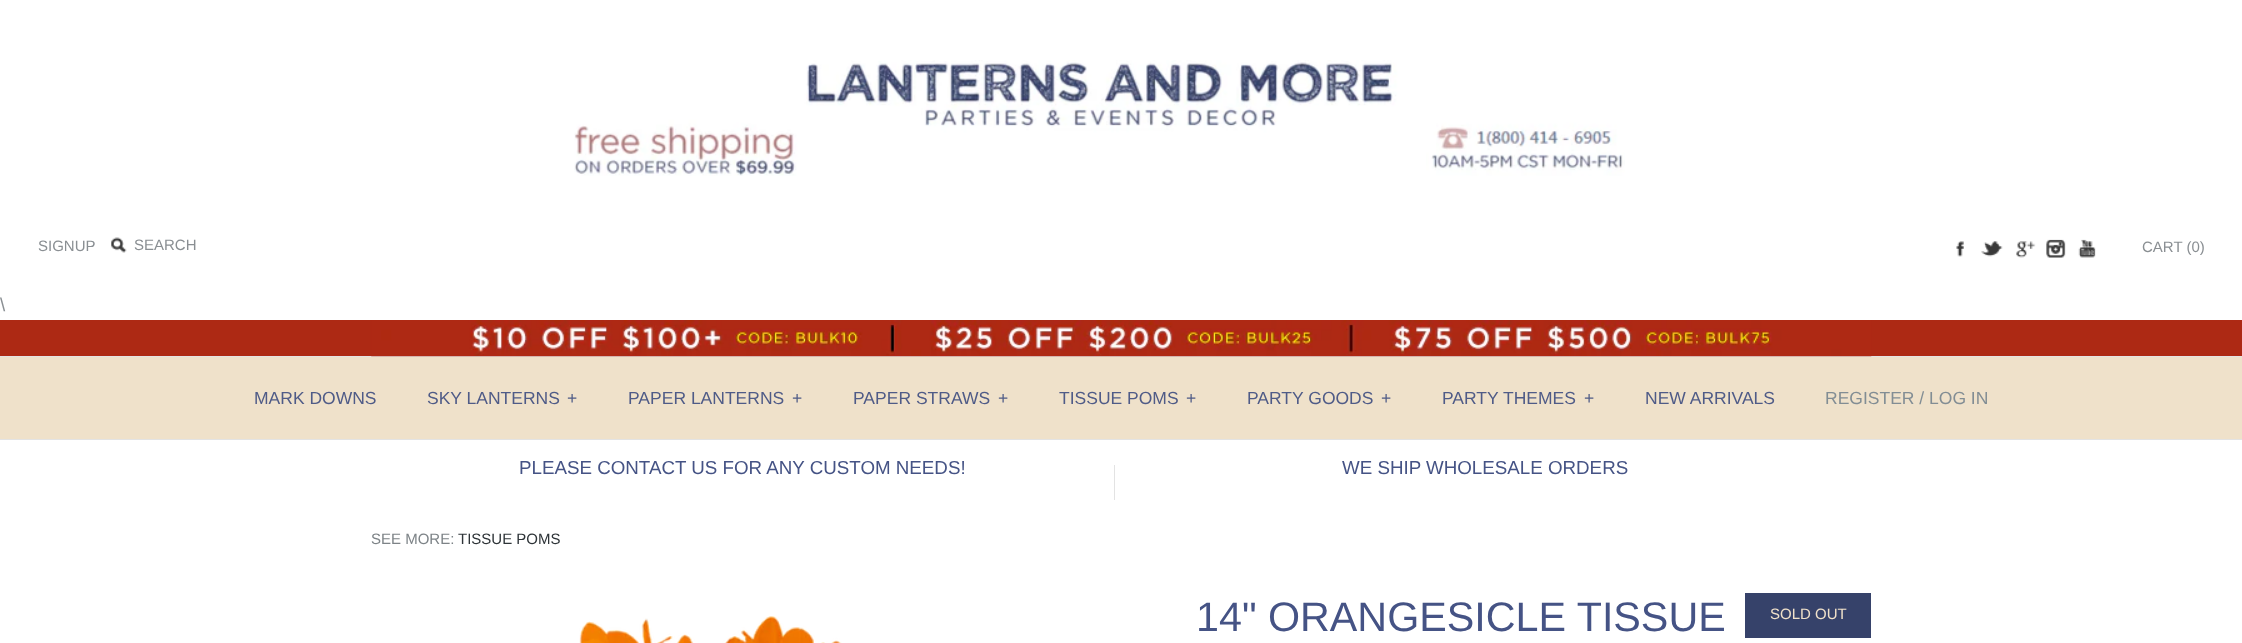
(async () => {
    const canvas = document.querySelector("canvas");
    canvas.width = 2242;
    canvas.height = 643;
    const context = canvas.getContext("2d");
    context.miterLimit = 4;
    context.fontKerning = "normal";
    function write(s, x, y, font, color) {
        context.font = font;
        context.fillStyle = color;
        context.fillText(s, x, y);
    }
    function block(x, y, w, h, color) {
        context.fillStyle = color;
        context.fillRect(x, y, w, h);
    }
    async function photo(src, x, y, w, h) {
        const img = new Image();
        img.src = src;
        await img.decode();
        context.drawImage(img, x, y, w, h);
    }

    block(0, 0, 2242, 643, "rgb(239, 225, 202)");
    block(0, 0, 2242, 320, "rgb(255, 255, 255)");
    await photo("media/1.png", 574, 60, 1051, 116);
    write("SIGNUP", 38, 251, "15px Liberation Sans", "rgb(138, 143, 147)");
    await photo("media/2.png", 111, 237, 16, 16);
    write("SEARCH", 134, 250, "15px Liberation Sans", "rgb(138, 143, 147)");
    await photo("media/3.png", 1956, 241, 8, 16);
    await photo("media/4.png", 1981, 241, 22, 16);
    await photo("media/5.png", 2016, 241, 20, 17);
    await photo("media/6.png", 2046, 239, 20, 19);
    await photo("media/7.png", 2078, 239, 18, 19);
    write("CART (0)", 2142, 252, "15px Liberation Sans", "rgb(138, 143, 147)");
    write("\\", 0, 311, "18.75px Liberation Sans", "rgb(138, 143, 147)");
    block(0, 320, 2242, 36, "rgb(173, 41, 20)");
    block(0, 356, 2242, 1, "rgb(227, 227, 227)");
    await photo("media/8.png", 371, 320, 1501, 37);
    block(0, 439, 2242, 1, "rgb(227, 227, 227)");
    write("MARK DOWNS", 254, 404, "17.5px Liberation Sans", "rgb(79, 91, 135)");
    write("SKY LANTERNS", 427, 404, "17.5px Liberation Sans", "rgb(79, 91, 135)");
    write("+", 567, 404, "17.5px Liberation Sans", "rgb(79, 91, 135)");
    write("PAPER LANTERNS", 628, 404, "17.5px Liberation Sans", "rgb(79, 91, 135)");
    write("+", 792, 404, "17.5px Liberation Sans", "rgb(79, 91, 135)");
    write("PAPER STRAWS", 853, 404, "17.5px Liberation Sans", "rgb(79, 91, 135)");
    write("+", 998, 404, "17.5px Liberation Sans", "rgb(79, 91, 135)");
    write("TISSUE POMS", 1059, 404, "17.5px Liberation Sans", "rgb(79, 91, 135)");
    write("+", 1186, 404, "17.5px Liberation Sans", "rgb(79, 91, 135)");
    write("PARTY GOODS", 1247, 404, "17.5px Liberation Sans", "rgb(79, 91, 135)");
    write("+", 1381, 404, "17.5px Liberation Sans", "rgb(79, 91, 135)");
    write("PARTY THEMES", 1442, 404, "17.5px Liberation Sans", "rgb(79, 91, 135)");
    write("+", 1584, 404, "17.5px Liberation Sans", "rgb(79, 91, 135)");
    write("NEW ARRIVALS", 1645, 404, "17.5px Liberation Sans", "rgb(79, 91, 135)");
    write("REGISTER / LOG IN", 1825, 404, "17.5px Liberation Sans", "rgb(130, 141, 148)");
    block(0, 440, 2242, 203, "rgb(255, 255, 255)");
    write("PLEASE CONTACT US FOR ANY CUSTOM NEEDS!", 519, 474, "18.75px Liberation Sans", "rgb(69, 83, 133)");
    block(1114, 465, 1, 35, "rgb(227, 227, 227)");
    write("WE SHIP WHOLESALE ORDERS", 1342, 474, "18.75px Liberation Sans", "rgb(69, 83, 133)");
    write("SEE MORE:", 371, 544, "15px Liberation Sans", "rgb(125, 131, 135)");
    write("TISSUE POMS", 458, 544, "15px Liberation Sans", "rgb(46, 52, 56)");
    await photo("media/9.png", 579, 616, 263, 27);
    write("14\" ORANGESICLE TISSUE", 1196, 631, "41.25px Liberation Sans", "rgb(69, 83, 133)");
    block(1745, 593, 126, 45, "rgb(54, 66, 106)");
    write("SOLD OUT", 1770, 619, "15px Liberation Sans", "rgb(240, 225, 202)");
})();
